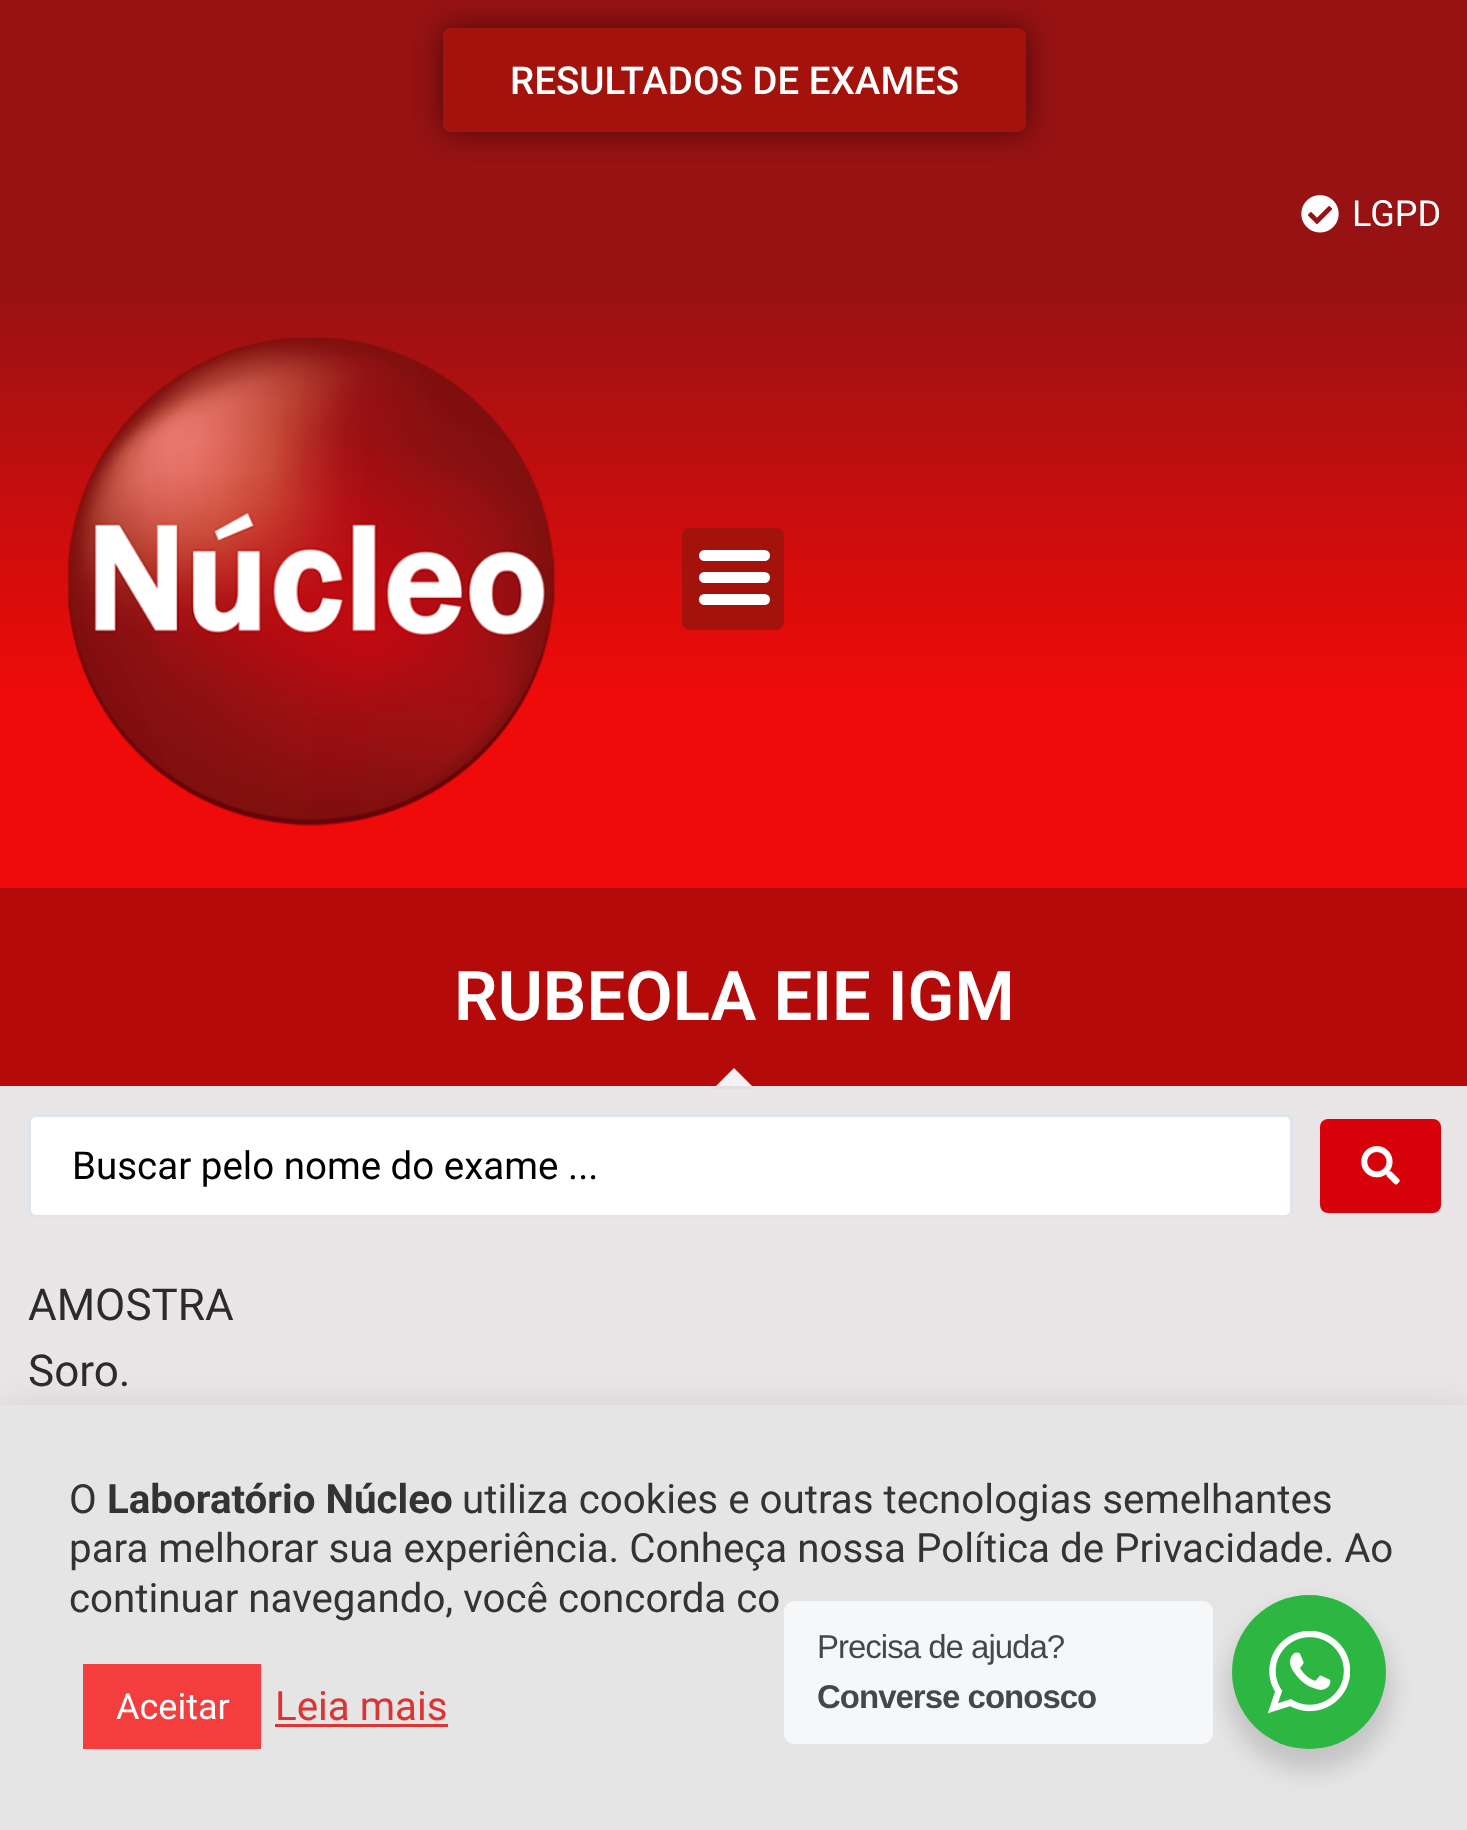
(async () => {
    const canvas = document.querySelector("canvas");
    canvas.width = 1467;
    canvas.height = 1830;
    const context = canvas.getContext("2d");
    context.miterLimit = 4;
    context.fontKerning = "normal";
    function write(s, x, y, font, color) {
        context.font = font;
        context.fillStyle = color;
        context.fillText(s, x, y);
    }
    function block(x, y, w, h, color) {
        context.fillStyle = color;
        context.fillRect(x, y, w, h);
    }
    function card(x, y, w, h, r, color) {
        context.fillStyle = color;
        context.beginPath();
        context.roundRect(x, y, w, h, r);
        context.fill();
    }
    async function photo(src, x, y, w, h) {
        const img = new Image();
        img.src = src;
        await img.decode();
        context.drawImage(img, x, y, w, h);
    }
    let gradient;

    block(0, 0, 1467, 1830, "rgb(255, 255, 255)");
    gradient = context.createLinearGradient(734, 0, 734, 888);
    gradient.addColorStop(0.31, "rgb(150, 18, 19)");
    gradient.addColorStop(0.78, "rgb(238, 11, 9)");
    context.fillStyle = gradient;
    context.fillRect(0, 0, 1467, 888);
    context.fillStyle = "rgba(0, 0, 0, 0.5)";
    context.filter = "blur(14px)";
    context.beginPath();
    context.roundRect(443, 28, 583, 104, 8);
    context.fill();
    context.filter = "none";
    card(443, 28, 583, 104, 8, "rgb(163, 19, 12)");
    write("RESULTADOS DE EXAMES", 510, 94, "500 38.5px Roboto", "rgb(255, 255, 255)");
    await photo("media/1.png", 1301, 195, 38, 38);
    write("LGPD", 1352, 226, "36px Roboto", "rgb(255, 255, 255)");
    await photo("media/2.png", 68, 337, 487, 489);
    card(682, 528, 102, 102, 8, "rgb(163, 19, 12)");
    card(699, 572, 71, 11, 5.5, "rgb(255, 255, 255)");
    card(699, 550, 71, 11, 5.5, "rgb(255, 255, 255)");
    card(699, 594, 71, 11, 5.5, "rgb(255, 255, 255)");
    block(0, 888, 1467, 198, "rgb(180, 10, 10)");
    write("RUBEOLA EIE IGM", 454, 1020, "600 68.75px Roboto", "rgb(255, 255, 255)");
    context.fillStyle = "rgb(244, 242, 242)";
    context.beginPath();
    context.moveTo(734, 1068);
    context.lineTo(755, 1089);
    context.lineTo(713, 1089);
    context.closePath();
    context.fill();
    gradient = context.createLinearGradient(734, 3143, 734, 1086);
    gradient.addColorStop(0.36, "rgba(255, 255, 255, 0.5)");
    gradient.addColorStop(0.81, "rgba(211, 204, 206, 0.5)");
    context.fillStyle = gradient;
    context.fillRect(0, 1086, 1467, 319);
    context.fillStyle = "rgb(255, 255, 255)";
    context.beginPath();
    context.roundRect(29.5, 1115.5, 1262, 101, 6.5);
    context.fill();
    context.strokeStyle = "rgb(225, 229, 235)";
    context.lineWidth = 3;
    context.stroke();
    write("Buscar pelo nome do exame ...", 72, 1179, "38.5px Roboto", "rgb(0, 0, 0)");
    card(1320, 1119, 121, 94, 8, "rgb(216, 2, 11)");
    await photo("media/3.png", 1361, 1146, 39, 39);
    write("AMOSTRA", 28, 1320, "44px Roboto", "rgb(43, 43, 43)");
    write("Soro.", 28, 1386, "44px Roboto", "rgb(43, 43, 43)");
    context.fillStyle = "rgba(172, 171, 171, 0.3)";
    context.filter = "blur(14px)";
    context.beginPath();
    context.rect(0, 1403, 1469, 426);
    context.fill();
    context.filter = "none";
    block(0, 1405, 1467, 425, "rgb(229, 229, 229)");
    write("O", 69, 1513, "40.3px Roboto", "rgb(51, 51, 51)");
    write("Laboratório Núcleo", 107, 1513, "bold 40.3px Roboto", "rgb(51, 51, 51)");
    write("utiliza cookies e outras tecnologias semelhantes", 462, 1513, "40.3px Roboto", "rgb(51, 51, 51)");
    write("para melhorar sua experiência. Conheça nossa Política de Privacidade. Ao", 69, 1562, "40.3px Roboto", "rgb(51, 51, 51)");
    write("continuar navegando, você concorda co", 69, 1612, "40.3px Roboto", "rgb(51, 51, 51)");
    block(83, 1664, 178, 85, "rgb(244, 61, 61)");
    write("Aceitar", 116, 1719, "36px Roboto", "rgb(255, 255, 255)");
    write("Leia mais", 275, 1720, "40.3px Roboto", "rgb(221, 51, 51)");
    block(275, 1724, 173, 3, "rgb(221, 51, 51)");
    context.fillStyle = "rgba(0, 0, 0, 0.14)";
    context.filter = "blur(11px)";
    context.beginPath();
    context.roundRect(1227, 1606, 165, 165, 82.5);
    context.fill();
    context.filter = "none";
    card(784, 1601, 429, 143, 11, "rgb(245, 247, 249)");
    context.letterSpacing = "-1px";
    write("Precisa de ajuda?", 817, 1658, "33px Liberation Sans", "rgb(67, 71, 78)");
    write("Converse conosco", 817, 1708, "bold 33px Liberation Sans", "rgb(67, 71, 78)");
    context.fillStyle = "rgb(45, 183, 66)";
    context.beginPath();
    context.arc(1309, 1672, 77, 0, Math.PI * 2);
    context.fill();
    await photo("media/4.png", 1268, 1631, 82, 82);
})();
